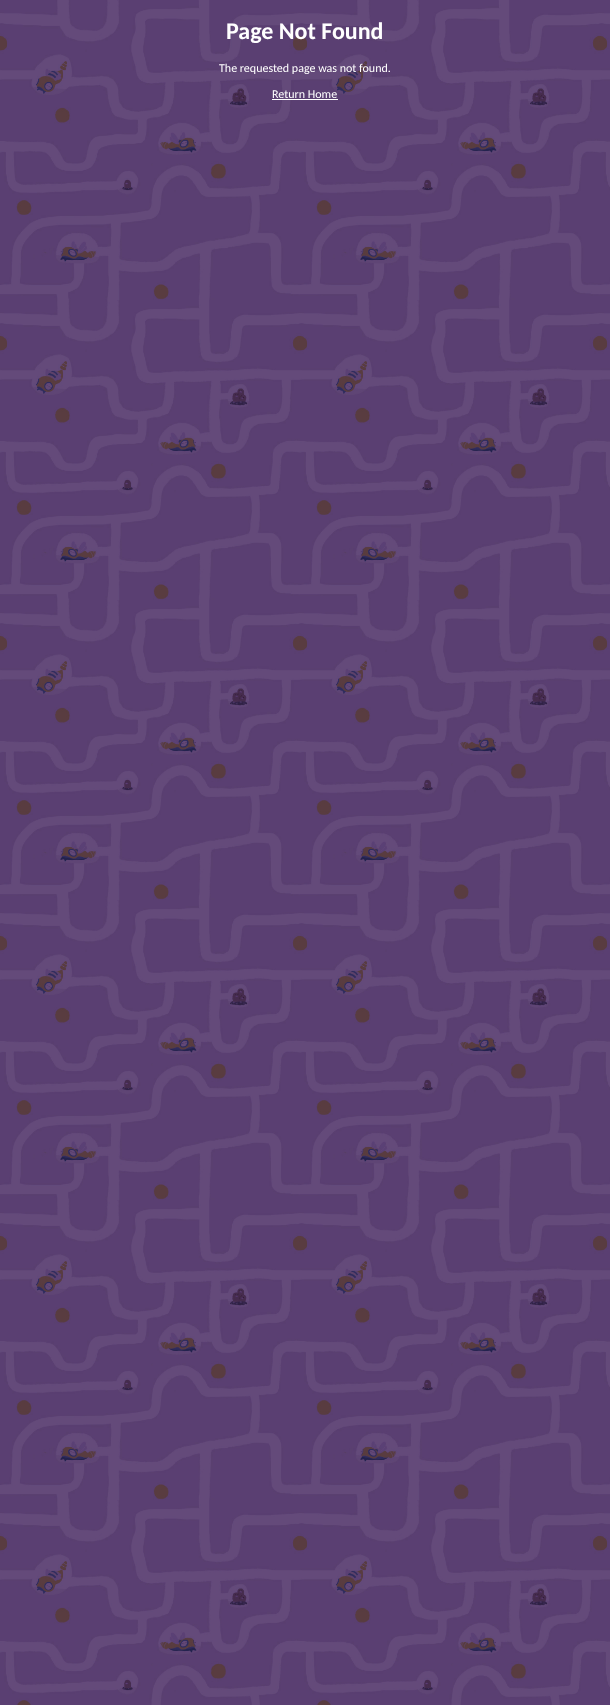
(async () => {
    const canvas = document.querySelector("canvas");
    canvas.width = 610;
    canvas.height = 1705;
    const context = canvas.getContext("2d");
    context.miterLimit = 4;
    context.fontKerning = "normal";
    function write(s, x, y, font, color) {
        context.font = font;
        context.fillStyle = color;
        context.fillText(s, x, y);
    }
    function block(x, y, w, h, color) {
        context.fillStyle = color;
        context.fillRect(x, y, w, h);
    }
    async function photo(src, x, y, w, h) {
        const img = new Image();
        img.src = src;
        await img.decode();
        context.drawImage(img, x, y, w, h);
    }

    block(0, 0, 610, 1705, "rgb(255, 255, 255)");
    await photo("media/1.png", 0, 0, 610, 1705);
    write("Page Not Found", 226, 39, "bold 24px Carlito", "rgb(255, 255, 255)");
    write("The requested page was not found.", 219, 72, "12px Carlito", "rgb(255, 255, 255)");
    write("Return Home", 272, 98, "12px Carlito", "rgb(255, 255, 255)");
    block(272, 99, 66, 1, "rgb(255, 255, 255)");
})();
